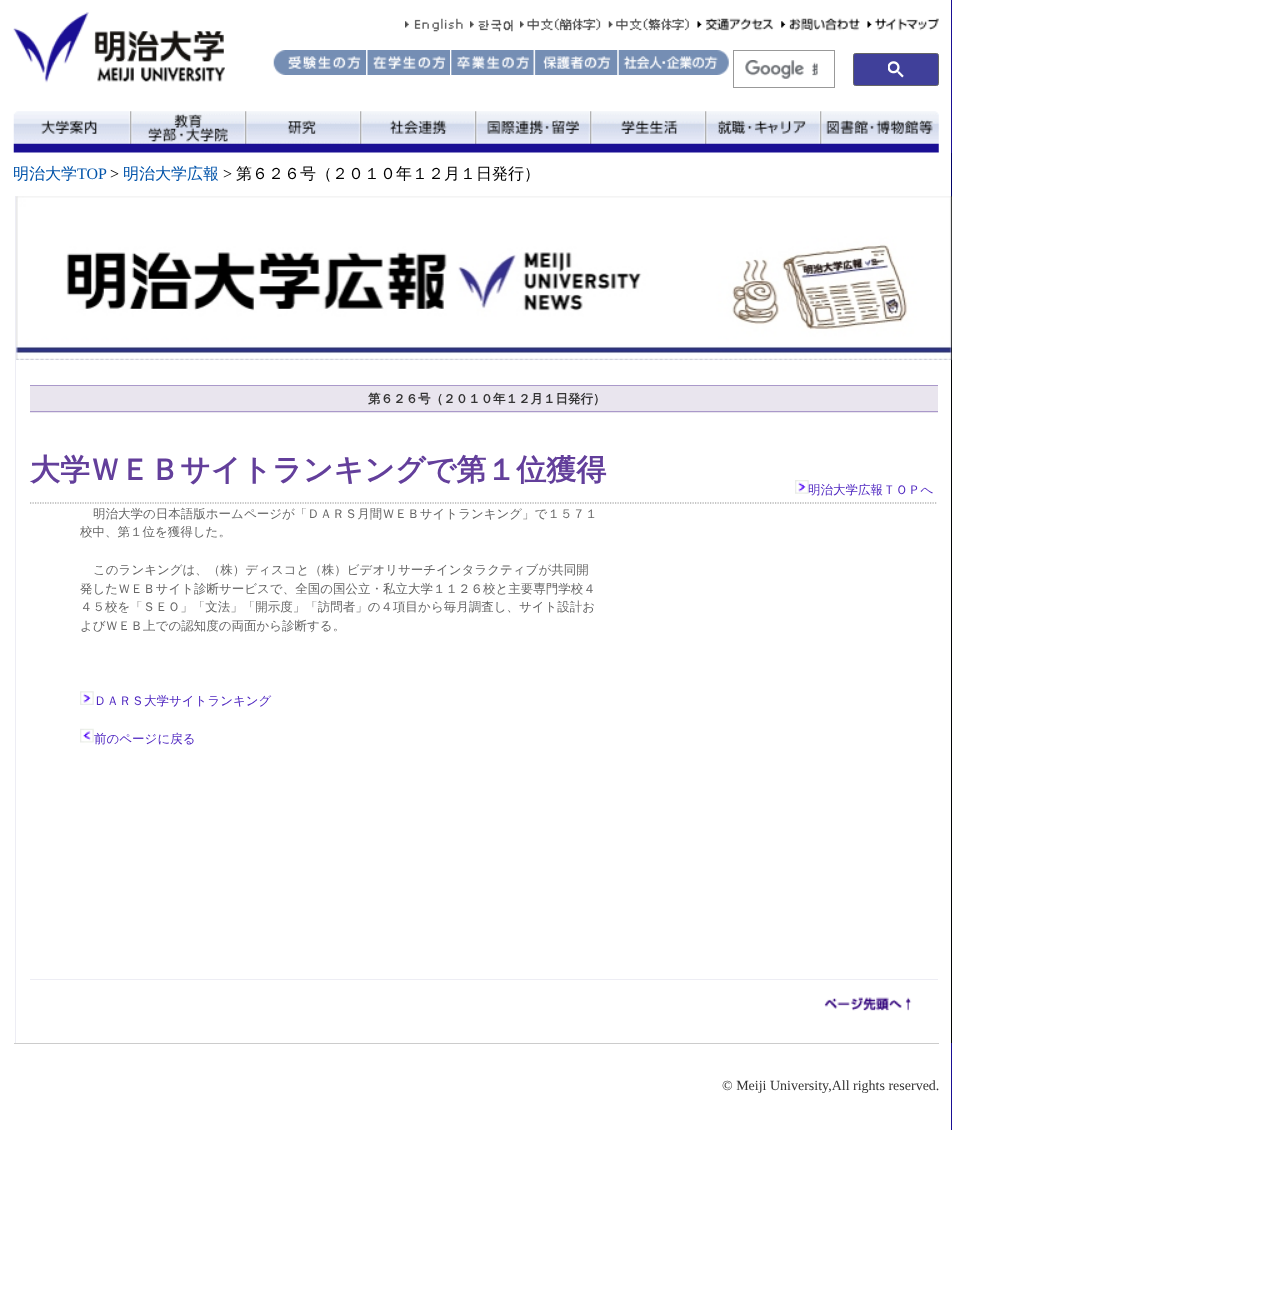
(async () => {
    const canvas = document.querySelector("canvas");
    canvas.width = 1288;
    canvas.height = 1296;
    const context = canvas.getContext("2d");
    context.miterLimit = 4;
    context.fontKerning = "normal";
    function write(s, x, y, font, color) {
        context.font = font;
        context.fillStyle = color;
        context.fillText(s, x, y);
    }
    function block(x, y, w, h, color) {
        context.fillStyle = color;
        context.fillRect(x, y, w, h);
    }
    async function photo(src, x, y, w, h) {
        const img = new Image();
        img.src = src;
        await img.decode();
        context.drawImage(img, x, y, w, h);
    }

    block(0, 0, 1288, 1296, "rgb(255, 255, 255)");
    block(951, 0, 1, 153, "rgb(26, 15, 148)");
    await photo("media/1.png", 13, 12, 212, 71);
    await photo("media/2.png", 405, 18, 58, 14);
    await photo("media/3.png", 470, 19, 43, 13);
    await photo("media/4.png", 520, 18, 81, 13);
    await photo("media/5.png", 608, 18, 81, 13);
    await photo("media/6.png", 697, 18, 77, 13);
    await photo("media/7.png", 781, 18, 79, 13);
    await photo("media/8.png", 867, 18, 72, 13);
    await photo("media/9.png", 273, 50, 94, 25);
    await photo("media/10.png", 366, 50, 84, 25);
    await photo("media/11.png", 451, 50, 83, 25);
    await photo("media/12.png", 533, 50, 85, 25);
    await photo("media/13.png", 617, 50, 112, 25);
    context.strokeStyle = "rgb(153, 153, 153)";
    context.strokeRect(733.5, 50.5, 101, 37);
    await photo("media/14.png", 745, 60, 73, 19);
    context.fillStyle = "rgb(64, 64, 154)";
    context.beginPath();
    context.roundRect(853.5, 53.5, 85, 32, 2);
    context.fill();
    context.strokeStyle = "rgb(102, 102, 102)";
    context.stroke();
    await photo("media/15.png", 888, 61, 16, 17);
    await photo("media/16.png", 13, 111, 117, 42);
    await photo("media/17.png", 130, 111, 115, 42);
    await photo("media/18.png", 245, 111, 115, 42);
    await photo("media/19.png", 360, 111, 115, 42);
    await photo("media/20.png", 475, 111, 115, 42);
    await photo("media/21.png", 590, 111, 115, 42);
    await photo("media/22.png", 705, 111, 115, 42);
    await photo("media/23.png", 820, 111, 119, 42);
    block(951, 153, 1, 43, "rgb(1, 3, 102)");
    write("明治大学", 13, 179, "500 16px WenQuanYi Zen Hei", "rgb(2, 84, 170)");
    write("TOP", 77, 179, "16px Liberation Serif", "rgb(2, 84, 170)");
    write(">", 110, 179, "16px Liberation Serif", "rgb(0, 0, 0)");
    write("明治大学広報", 123, 179, "500 16px WenQuanYi Zen Hei", "rgb(2, 84, 170)");
    write(">", 223, 179, "16px Liberation Serif", "rgb(0, 0, 0)");
    write("第６２６号（２０１０年１２月１日発行）", 236, 179, "500 16px WenQuanYi Zen Hei", "rgb(0, 0, 0)");
    block(951, 196, 1, 847, "rgb(1, 3, 6)");
    block(15, 196, 1, 847, "rgb(237, 237, 244)");
    await photo("media/24.png", 16, 196, 936, 164);
    block(30, 386, 908, 27, "rgb(233, 229, 238)");
    block(30, 385, 908, 1, "rgb(170, 153, 202)");
    block(30, 411, 908, 1, "rgb(170, 153, 202)");
    write("第６２６号（２０１０年１２月１日発行）", 368, 403, "bold 12.5px WenQuanYi Zen Hei", "rgb(51, 51, 51)");
    context.beginPath();
    context.moveTo(30, 503);
    context.lineTo(937.5, 503);
    context.strokeStyle = "rgb(143, 143, 143)";
    context.lineWidth = 1.2;
    context.setLineDash([1.25, 1.25]);
    context.stroke();
    write("大学ＷＥＢサイトランキングで第１位獲得", 30, 480, "bold 30px WenQuanYi Zen Hei", "rgb(99, 63, 155)");
    await photo("media/25.png", 795, 480, 14, 14);
    write("明治大学広報ＴＯＰへ", 808, 494, "500 12.5px WenQuanYi Zen Hei", "rgb(80, 40, 193)");
    write("明治大学の日本語版ホームページが「ＤＡＲＳ月間ＷＥＢサイトランキング」で１５７１", 93, 518, "500 12.5px WenQuanYi Zen Hei", "rgb(102, 102, 102)");
    write("校中、第１位を獲得した。", 80, 536, "500 12.5px WenQuanYi Zen Hei", "rgb(102, 102, 102)");
    write("このランキングは、（株）ディスコと（株）ビデオリサーチインタラクティブが共同開", 93, 574, "500 12.5px WenQuanYi Zen Hei", "rgb(102, 102, 102)");
    write("発したＷＥＢサイト診断サービスで、全国の国公立・私立大学１１２６校と主要専門学校４", 80, 593, "500 12.5px WenQuanYi Zen Hei", "rgb(102, 102, 102)");
    write("４５校を「ＳＥＯ」「文法」「開示度」「訪問者」の４項目から毎月調査し、サイト設計お", 80, 611, "500 12.5px WenQuanYi Zen Hei", "rgb(102, 102, 102)");
    write("よびＷＥＢ上での認知度の両面から診断する。", 80, 630, "500 12.5px WenQuanYi Zen Hei", "rgb(102, 102, 102)");
    await photo("media/26.png", 80, 691, 14, 14);
    write("ＤＡＲＳ大学サイトランキング", 94, 705, "500 12.5px WenQuanYi Zen Hei", "rgb(80, 40, 193)");
    await photo("media/27.png", 80, 728, 14, 15);
    write("前のページに戻る", 94, 743, "500 12.5px WenQuanYi Zen Hei", "rgb(80, 40, 193)");
    block(30, 979, 908, 1, "rgb(237, 237, 244)");
    await photo("media/28.png", 824, 997, 88, 14);
    block(951, 1043, 1, 87, "rgb(26, 15, 148)");
    block(14, 1043, 925, 1, "rgb(204, 204, 204)");
    write("© Meiji University,All rights reserved.", 722, 1090, "14px Liberation Serif", "rgb(51, 51, 51)");
})();
